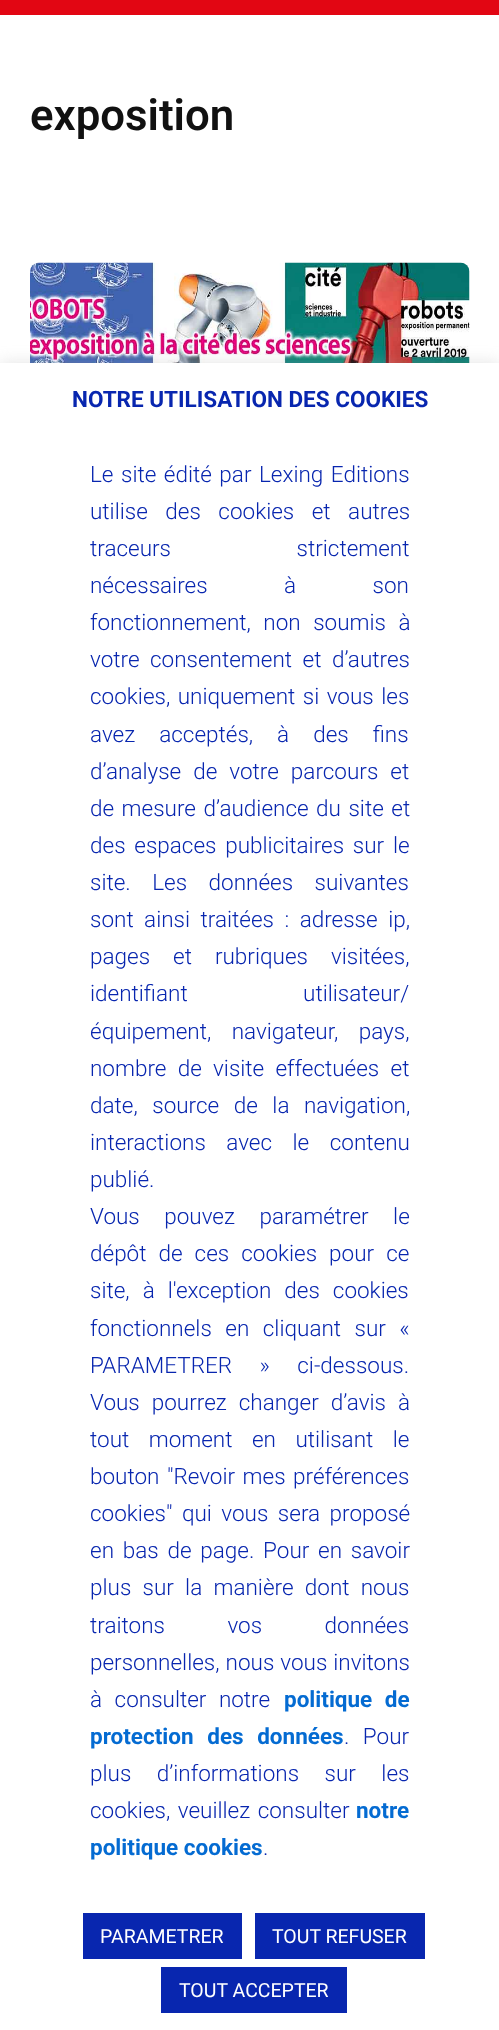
(async () => {
    const canvas = document.querySelector("canvas");
    canvas.width = 499;
    canvas.height = 2030;
    const context = canvas.getContext("2d");
    context.miterLimit = 4;
    context.fontKerning = "normal";
    function write(s, x, y, font, color) {
        context.font = font;
        context.fillStyle = color;
        context.fillText(s, x, y);
    }
    function block(x, y, w, h, color) {
        context.fillStyle = color;
        context.fillRect(x, y, w, h);
    }
    async function photo(src, x, y, w, h) {
        const img = new Image();
        img.src = src;
        await img.decode();
        context.drawImage(img, x, y, w, h);
    }

    block(0, 0, 499, 2030, "rgb(255, 255, 255)");
    block(0, 0, 499, 15, "rgb(226, 6, 19)");
    write("exposition", 30, 130, "600 43.75px Roboto", "rgb(17, 17, 17)");
    await photo("media/1.png", 30, 262, 440, 101);
    context.fillStyle = "rgba(172, 171, 171, 0.3)";
    context.filter = "blur(7.5px)";
    context.beginPath();
    context.rect(0, 362, 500, 1668);
    context.fill();
    context.filter = "none";
    block(0, 363, 499, 1667, "rgb(255, 255, 255)");
    write("NOTRE UTILISATION DES COOKIES", 72, 407, "bold 22.5px Roboto", "rgb(8, 38, 175)");
    context.wordSpacing = "2px";
    write("Le site édité par Lexing Editions", 90, 482, "300 22.5px Roboto", "rgb(8, 38, 175)");
    context.wordSpacing = "12px";
    write("utilise des cookies et autres", 90, 519, "300 22.5px Roboto", "rgb(8, 38, 175)");
    context.wordSpacing = "120px";
    write("traceurs strictement", 90, 556, "300 22.5px Roboto", "rgb(8, 38, 175)");
    context.wordSpacing = "71px";
    write("nécessaires à son", 90, 593, "300 22.5px Roboto", "rgb(8, 38, 175)");
    context.wordSpacing = "7px";
    write("fonctionnement, non soumis à", 90, 630, "300 22.5px Roboto", "rgb(8, 38, 175)");
    context.wordSpacing = "5px";
    write("votre consentement et d’autres", 90, 667, "300 22.5px Roboto", "rgb(8, 38, 175)");
    context.wordSpacing = "2px";
    write("cookies, uniquement si vous les", 90, 704, "300 22.5px Roboto", "rgb(8, 38, 175)");
    context.wordSpacing = "18.5px";
    write("avez acceptés, à des fins", 90, 742, "300 22.5px Roboto", "rgb(8, 38, 175)");
    context.wordSpacing = "6.5px";
    write("d’analyse de votre parcours et", 90, 779, "300 22.5px Roboto", "rgb(8, 38, 175)");
    context.wordSpacing = "2px";
    write("de mesure d’audience du site et", 90, 816, "300 22.5px Roboto", "rgb(8, 38, 175)");
    context.wordSpacing = "3.25px";
    write("des espaces publicitaires sur le", 90, 853, "300 22.5px Roboto", "rgb(8, 38, 175)");
    context.wordSpacing = "16px";
    write("site. Les données suivantes", 90, 890, "300 22.5px Roboto", "rgb(8, 38, 175)");
    context.wordSpacing = "5px";
    write("sont ainsi traitées : adresse ip,", 90, 927, "300 22.5px Roboto", "rgb(8, 38, 175)");
    context.wordSpacing = "17.5px";
    write("pages et rubriques visitées,", 90, 964, "300 22.5px Roboto", "rgb(8, 38, 175)");
    context.wordSpacing = "110px";
    write("identifiant utilisateur/", 90, 1001, "300 22.5px Roboto", "rgb(8, 38, 175)");
    context.wordSpacing = "15px";
    write("équipement, navigateur, pays,", 90, 1039, "300 22.5px Roboto", "rgb(8, 38, 175)");
    context.wordSpacing = "5.75px";
    write("nombre de visite effectuées et", 90, 1076, "300 22.5px Roboto", "rgb(8, 38, 175)");
    context.wordSpacing = "9px";
    write("date, source de la navigation,", 90, 1113, "300 22.5px Roboto", "rgb(8, 38, 175)");
    context.wordSpacing = "15px";
    write("interactions avec le contenu", 90, 1150, "300 22.5px Roboto", "rgb(8, 38, 175)");
    context.wordSpacing = "0px";
    write("publié.", 90, 1187, "300 22.5px Roboto", "rgb(8, 38, 175)");
    context.wordSpacing = "19px";
    write("Vous pouvez paramétrer le", 90, 1224, "300 22.5px Roboto", "rgb(8, 38, 175)");
    context.wordSpacing = "6.5px";
    write("dépôt de ces cookies pour ce", 90, 1261, "300 22.5px Roboto", "rgb(8, 38, 175)");
    context.wordSpacing = "7.5px";
    write("site, à l'exception des cookies", 90, 1298, "300 22.5px Roboto", "rgb(8, 38, 175)");
    context.wordSpacing = "8px";
    write("fonctionnels en cliquant sur «", 90, 1336, "300 22.5px Roboto", "rgb(8, 38, 175)");
    context.wordSpacing = "22px";
    write("PARAMETRER » ci-dessous.", 90, 1373, "300 22.5px Roboto", "rgb(8, 38, 175)");
    context.wordSpacing = "6.5px";
    write("Vous pourrez changer d’avis à", 90, 1410, "300 22.5px Roboto", "rgb(8, 38, 175)");
    context.wordSpacing = "14px";
    write("tout moment en utilisant le", 90, 1447, "300 22.5px Roboto", "rgb(8, 38, 175)");
    context.wordSpacing = "2px";
    write("bouton \"Revoir mes préférences", 90, 1484, "300 22.5px Roboto", "rgb(8, 38, 175)");
    context.wordSpacing = "4px";
    write("cookies\" qui vous sera proposé", 90, 1521, "300 22.5px Roboto", "rgb(8, 38, 175)");
    context.wordSpacing = "3.25px";
    write("en bas de page. Pour en savoir", 90, 1558, "300 22.5px Roboto", "rgb(8, 38, 175)");
    context.wordSpacing = "5.75px";
    write("plus sur la manière dont nous", 90, 1595, "300 22.5px Roboto", "rgb(8, 38, 175)");
    context.wordSpacing = "57px";
    write("traitons vos données", 90, 1633, "300 22.5px Roboto", "rgb(8, 38, 175)");
    context.wordSpacing = "0.5px";
    write("personnelles, nous vous invitons", 90, 1670, "300 22.5px Roboto", "rgb(8, 38, 175)");
    context.wordSpacing = "7px";
    write("à consulter notre", 90, 1707, "300 22.5px Roboto", "rgb(8, 38, 175)");
    write("politique de", 284, 1707, "bold 22.5px Roboto", "rgb(4, 107, 210)");
    context.wordSpacing = "8px";
    write("protection des données", 90, 1744, "bold 22.5px Roboto", "rgb(4, 107, 210)");
    write(". Pour", 344, 1744, "300 22.5px Roboto", "rgb(8, 38, 175)");
    context.wordSpacing = "20px";
    write("plus d’informations sur les", 90, 1781, "300 22.5px Roboto", "rgb(8, 38, 175)");
    context.wordSpacing = "2px";
    write("cookies, veuillez consulter", 90, 1818, "300 22.5px Roboto", "rgb(8, 38, 175)");
    context.wordSpacing = "0px";
    write("notre", 356, 1818, "bold 22.5px Roboto", "rgb(4, 107, 210)");
    write("politique cookies", 90, 1855, "bold 22.5px Roboto", "rgb(4, 107, 210)");
    write(".", 263, 1855, "300 22.5px Roboto", "rgb(8, 38, 175)");
    block(83, 1913, 159, 46, "rgb(8, 38, 175)");
    write("PARAMETRER", 100, 1943, "19.5px Roboto", "rgb(255, 255, 255)");
    block(255, 1913, 170, 46, "rgb(8, 38, 175)");
    write("TOUT REFUSER", 272, 1943, "19.5px Roboto", "rgb(255, 255, 255)");
    block(161, 1967, 186, 46, "rgb(8, 38, 175)");
    write("TOUT ACCEPTER", 179, 1997, "19.5px Roboto", "rgb(255, 255, 255)");
})();
